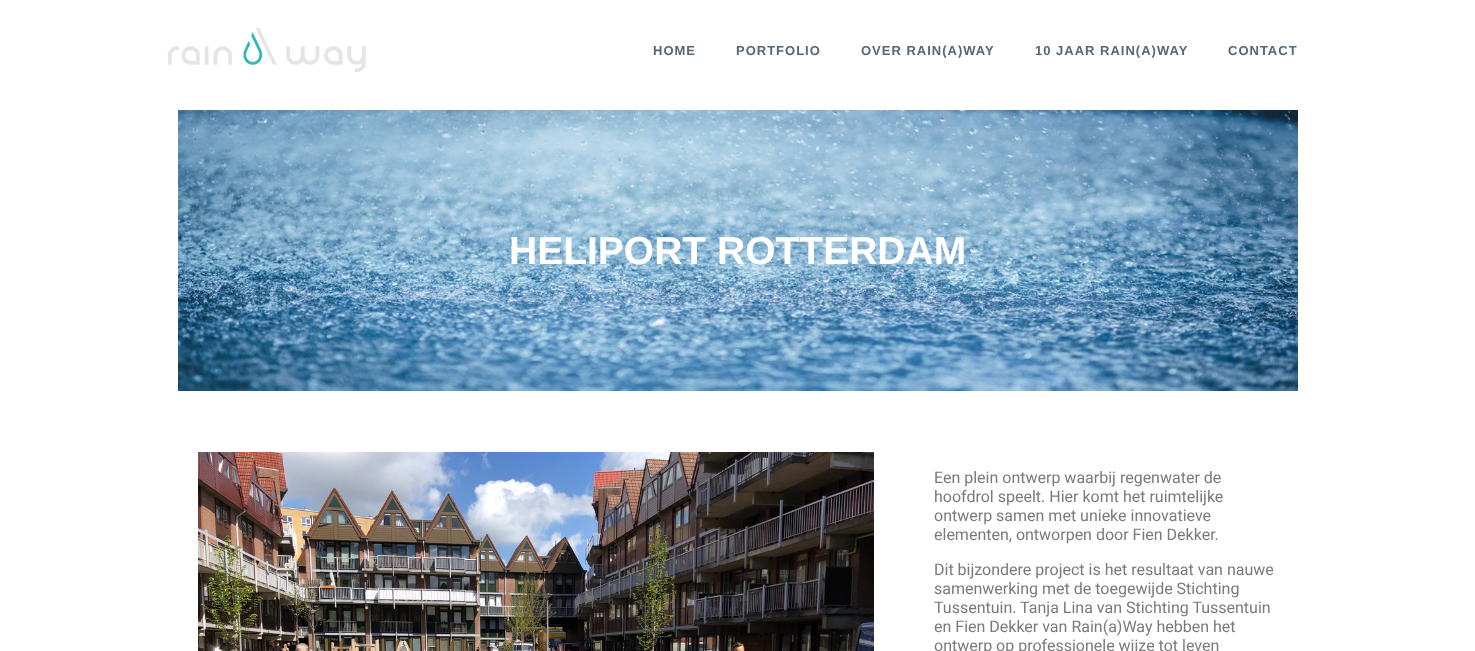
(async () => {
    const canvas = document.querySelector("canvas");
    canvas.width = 1475;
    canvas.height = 651;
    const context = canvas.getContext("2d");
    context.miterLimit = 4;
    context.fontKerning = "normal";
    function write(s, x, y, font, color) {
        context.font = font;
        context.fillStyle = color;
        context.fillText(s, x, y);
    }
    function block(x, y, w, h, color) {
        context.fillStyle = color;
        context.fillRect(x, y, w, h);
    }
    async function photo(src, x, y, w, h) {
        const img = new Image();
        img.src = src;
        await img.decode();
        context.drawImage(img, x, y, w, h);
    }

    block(0, 0, 1475, 651, "rgb(255, 255, 255)");
    await photo("media/1.png", 168, 28, 198, 44);
    context.letterSpacing = "1px";
    write("HOME", 653, 55, "bold 13px Liberation Sans", "rgb(84, 104, 118)");
    write("PORTFOLIO", 736, 55, "bold 13px Liberation Sans", "rgb(84, 104, 118)");
    write("OVER RAIN(A)WAY", 861, 55, "bold 13px Liberation Sans", "rgb(84, 104, 118)");
    write("10 JAAR RAIN(A)WAY", 1035, 55, "bold 13px Liberation Sans", "rgb(84, 104, 118)");
    write("CONTACT", 1228, 55, "bold 13px Liberation Sans", "rgb(84, 104, 118)");
    await photo("media/2.png", 178, 110, 1120, 281);
    context.letterSpacing = "0px";
    write("HELIPORT ROTTERDAM", 509, 264, "bold 39px Liberation Sans", "rgb(255, 255, 255)");
    await photo("media/3.png", 198, 452, 676, 199);
    write("Een plein ontwerp waarbij regenwater de", 934, 483, "16px Roboto", "rgb(122, 122, 122)");
    write("hoofdrol speelt. Hier komt het ruimtelijke", 934, 502, "16px Roboto", "rgb(122, 122, 122)");
    write("ontwerp samen met unieke innovatieve", 934, 521, "16px Roboto", "rgb(122, 122, 122)");
    write("elementen, ontworpen door Fien Dekker.", 934, 540, "16px Roboto", "rgb(122, 122, 122)");
    write("Dit bijzondere project is het resultaat van nauwe", 934, 575, "16px Roboto", "rgb(122, 122, 122)");
    write("samenwerking met de toegewijde Stichting", 934, 594, "16px Roboto", "rgb(122, 122, 122)");
    write("Tussentuin. Tanja Lina van Stichting Tussentuin", 934, 613, "16px Roboto", "rgb(122, 122, 122)");
    write("en Fien Dekker van Rain(a)Way hebben het", 934, 632, "16px Roboto", "rgb(122, 122, 122)");
    write("ontwerp op professionele wijze tot leven", 934, 651, "16px Roboto", "rgb(122, 122, 122)");
})();
